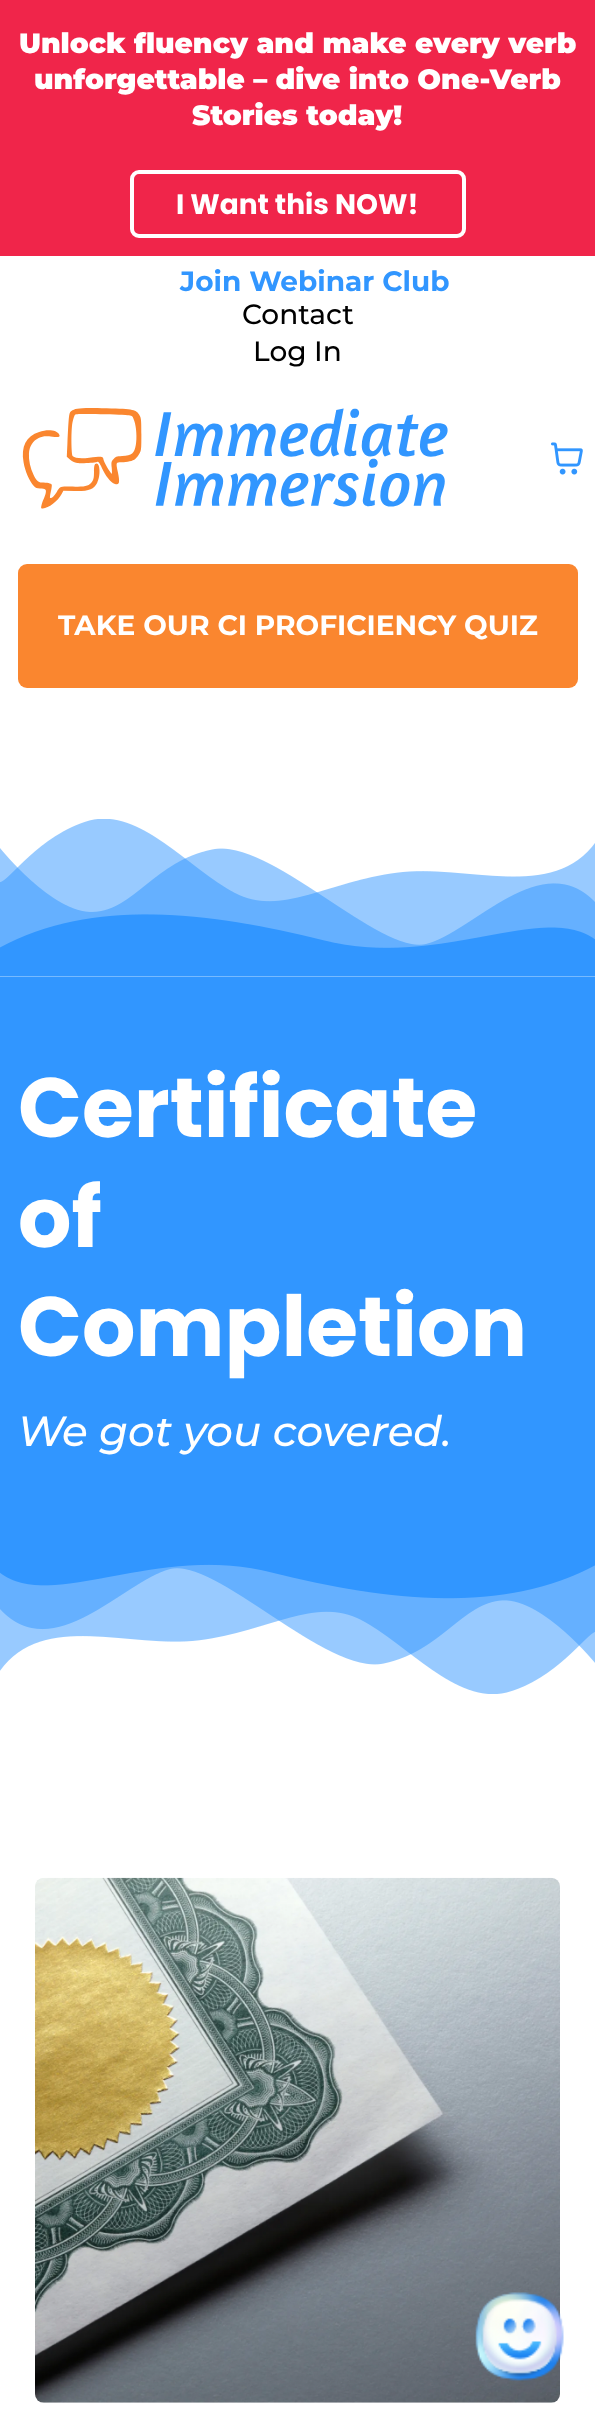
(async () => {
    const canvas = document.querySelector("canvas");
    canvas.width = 595;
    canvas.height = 2410;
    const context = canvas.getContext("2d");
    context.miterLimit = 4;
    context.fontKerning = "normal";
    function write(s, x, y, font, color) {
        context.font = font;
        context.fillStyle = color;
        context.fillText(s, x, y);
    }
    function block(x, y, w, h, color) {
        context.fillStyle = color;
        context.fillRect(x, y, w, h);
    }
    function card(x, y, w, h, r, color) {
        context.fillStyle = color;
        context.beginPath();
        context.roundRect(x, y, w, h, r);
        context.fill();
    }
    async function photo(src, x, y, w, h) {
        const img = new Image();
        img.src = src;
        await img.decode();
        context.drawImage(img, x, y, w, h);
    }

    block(0, 0, 595, 2410, "rgb(255, 255, 255)");
    block(0, 0, 595, 256, "rgb(240, 37, 74)");
    write("Unlock fluency and make every verb", 19, 53, "900 28px Montserrat", "rgb(255, 255, 255)");
    write("unforgettable – dive into One-Verb", 34, 89, "900 28px Montserrat", "rgb(255, 255, 255)");
    write("Stories today!", 192, 125, "900 28px Montserrat", "rgb(255, 255, 255)");
    context.beginPath();
    context.roundRect(132, 172, 332, 64, 7);
    context.strokeStyle = "rgb(255, 255, 255)";
    context.lineWidth = 4;
    context.stroke();
    write("I Want this NOW!", 176, 214, "bold 28px Poppins", "rgb(255, 255, 255)");
    write("Join Webinar Club", 180, 291, "bold 28px Montserrat", "rgb(49, 150, 255)");
    write("Contact", 242, 324, "500 28px Montserrat", "rgb(0, 0, 0)");
    write("Log In", 253, 361, "500 28px Montserrat", "rgb(0, 0, 0)");
    await photo("media/1.png", 22, 408, 426, 101);
    await photo("media/2.png", 551, 442, 32, 33);
    card(18, 564, 560, 124, 9, "rgb(250, 134, 47)");
    write("TAKE OUR CI PROFICIENCY QUIZ", 58, 635, "bold 28px Montserrat", "rgb(255, 255, 255)");
    await photo("media/3.png", 0, 819, 595, 158);
    block(0, 977, 595, 560, "rgb(49, 150, 255)");
    write("Certificate", 18, 1137, "bold 84px Poppins", "rgb(255, 255, 255)");
    write("of", 18, 1247, "bold 84px Poppins", "rgb(255, 255, 255)");
    write("Completion", 18, 1356, "bold 84px Poppins", "rgb(255, 255, 255)");
    write("We got you covered.", 18, 1446, "italic 500 42px Montserrat", "rgb(255, 255, 255)");
    await photo("media/4.png", 0, 1537, 595, 157);
    await photo("media/5.png", 35, 1877, 525, 526);
    await photo("media/6.png", 475, 2292, 89, 89);
})();
